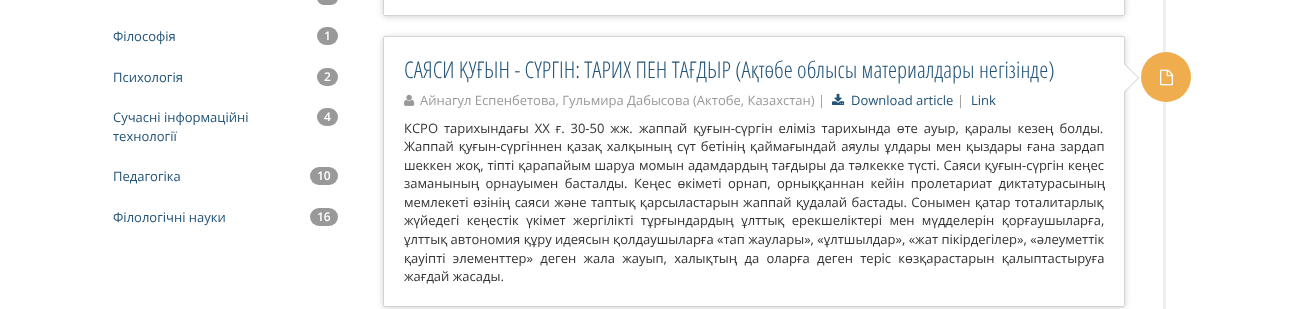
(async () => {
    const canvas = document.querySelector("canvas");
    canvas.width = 1305;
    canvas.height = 309;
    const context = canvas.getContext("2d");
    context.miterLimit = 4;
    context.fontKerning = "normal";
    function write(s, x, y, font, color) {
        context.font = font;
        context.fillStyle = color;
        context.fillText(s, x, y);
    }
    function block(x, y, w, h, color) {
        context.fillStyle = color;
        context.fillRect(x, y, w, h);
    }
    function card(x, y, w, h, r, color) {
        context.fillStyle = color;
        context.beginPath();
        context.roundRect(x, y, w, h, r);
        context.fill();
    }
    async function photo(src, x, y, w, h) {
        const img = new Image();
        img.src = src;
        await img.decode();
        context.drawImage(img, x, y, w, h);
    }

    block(0, 0, 1305, 309, "rgb(255, 255, 255)");
    card(317, -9, 21, 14, 9, "rgb(153, 153, 153)");
    write("Філософія", 113, 41, "13px Open Sans", "rgb(34, 83, 120)");
    card(317, 27, 21, 18, 9, "rgb(153, 153, 153)");
    write("1", 324, 40, "600 12px Open Sans", "rgb(255, 255, 255)");
    write("Психологія", 113, 82, "13px Open Sans", "rgb(34, 83, 120)");
    card(317, 68, 21, 18, 9, "rgb(153, 153, 153)");
    write("2", 324, 81, "600 12px Open Sans", "rgb(255, 255, 255)");
    write("Сучасні інформаційні", 113, 122, "13px Open Sans", "rgb(34, 83, 120)");
    card(317, 108, 21, 18, 9, "rgb(153, 153, 153)");
    write("4", 324, 121, "600 12px Open Sans", "rgb(255, 255, 255)");
    write("технології", 113, 141, "13px Open Sans", "rgb(34, 83, 120)");
    write("Педагогіка", 113, 181, "13px Open Sans", "rgb(34, 83, 120)");
    card(310, 167, 28, 18, 9, "rgb(153, 153, 153)");
    write("10", 317, 180, "600 12px Open Sans", "rgb(255, 255, 255)");
    write("Філологічні науки", 113, 222, "13px Open Sans", "rgb(34, 83, 120)");
    card(310, 208, 28, 18, 9, "rgb(153, 153, 153)");
    write("16", 317, 221, "600 12px Open Sans", "rgb(255, 255, 255)");
    context.save();
    context.beginPath();
    context.moveTo(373, 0);
    context.lineTo(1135, 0);
    context.lineTo(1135, 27);
    context.lineTo(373, 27);
    context.closePath();
    context.moveTo(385, -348);
    context.lineTo(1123, -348);
    context.bezierCurveTo(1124, -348, 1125, -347, 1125, -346);
    context.lineTo(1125, 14);
    context.bezierCurveTo(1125, 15, 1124, 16, 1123, 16);
    context.lineTo(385, 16);
    context.bezierCurveTo(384, 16, 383, 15, 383, 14);
    context.lineTo(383, -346);
    context.bezierCurveTo(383, -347, 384, -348, 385, -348);
    context.closePath();
    context.clip("evenodd");
    context.fillStyle = "rgba(0, 0, 0, 0.18)";
    context.filter = "blur(3px)";
    context.beginPath();
    context.roundRect(383, -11, 742, 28, 2);
    context.fill();
    context.filter = "none";
    context.restore();
    context.beginPath();
    context.roundRect(383.5, -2.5, 741, 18, 1.5);
    context.strokeStyle = "rgb(212, 212, 212)";
    context.stroke();
    block(1163, 0, 3, 309, "rgb(238, 238, 238)");
    context.save();
    context.beginPath();
    context.moveTo(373, 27);
    context.lineTo(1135, 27);
    context.lineTo(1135, 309);
    context.lineTo(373, 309);
    context.closePath();
    context.moveTo(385, 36);
    context.lineTo(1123, 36);
    context.bezierCurveTo(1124, 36, 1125, 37, 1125, 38);
    context.lineTo(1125, 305);
    context.bezierCurveTo(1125, 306, 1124, 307, 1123, 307);
    context.lineTo(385, 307);
    context.bezierCurveTo(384, 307, 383, 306, 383, 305);
    context.lineTo(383, 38);
    context.bezierCurveTo(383, 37, 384, 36, 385, 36);
    context.closePath();
    context.clip("evenodd");
    context.fillStyle = "rgba(0, 0, 0, 0.18)";
    context.filter = "blur(3px)";
    context.beginPath();
    context.roundRect(383, 37, 742, 271, 2);
    context.fill();
    context.filter = "none";
    context.restore();
    context.beginPath();
    context.roundRect(383.5, 36.5, 741, 270, 1.5);
    context.stroke();
    write("САЯСИ ҚУҒЫН - СҮРГІН: ТАРИХ ПЕН ТАҒДЫР (Ақтөбе облысы материалдары негізінде)", 404, 78, "300 23px Open Sans Condensed", "rgb(34, 83, 120)");
    await photo("media/1.png", 404, 94, 11, 12);
    write("Айнагул Еспенбетова, Гульмира Дабысова (Актобе, Казахстан) |", 420, 105, "13px Open Sans", "rgb(153, 153, 153)");
    await photo("media/2.png", 832, 93, 13, 12);
    write("Download article", 851, 105, "13px Open Sans", "rgb(34, 83, 120)");
    write("|", 957, 105, "13px Open Sans", "rgb(153, 153, 153)");
    write("Link", 971, 105, "13px Open Sans", "rgb(34, 83, 120)");
    context.fillStyle = "rgb(204, 204, 204)";
    context.beginPath();
    context.moveTo(1124, 93);
    context.lineTo(1124, 63);
    context.lineTo(1139, 78);
    context.closePath();
    context.fill();
    context.fillStyle = "rgb(255, 255, 255)";
    context.beginPath();
    context.moveTo(1124, 92);
    context.lineTo(1124, 64);
    context.lineTo(1138, 78);
    context.closePath();
    context.fill();
    context.wordSpacing = "2.5px";
    write("КСРО тарихындағы ХХ ғ. 30-50 жж.", 404, 133, "13px Open Sans", "rgb(51, 51, 51)");
    write("жаппай қуғын-сүргін еліміз тарихында өте ауыр, қаралы кезең болды.", 639, 133, "13px Open Sans", "rgb(51, 51, 51)");
    context.wordSpacing = "1.6px";
    write("Жаппай қуғын-сүргіннен қазақ халқының сүт бетінің қаймағындай аяулы ұлдары мен қыздары ғана зардап", 404, 151, "13px Open Sans", "rgb(51, 51, 51)");
    context.wordSpacing = "0.5px";
    write("шеккен жоқ, тіпті қарапайым шаруа момын адамдардың тағдыры да тәлкекке түсті. Саяси қуғын-сүргін", 404, 170, "13px Open Sans", "rgb(51, 51, 51)");
    context.wordSpacing = "0px";
    write("кеңес", 1068, 170, "13px Open Sans", "rgb(51, 51, 51)");
    context.wordSpacing = "3px";
    write("заманының орнауымен басталды. Кеңес өкіметі орнап, орныққаннан кейін пролетариат диктатурасының", 404, 188, "13px Open Sans", "rgb(51, 51, 51)");
    context.wordSpacing = "1px";
    write("мемлекеті өзінің саяси және таптық қарсыластарын жаппай қудалай бастады. Сонымен қатар тоталитарлық", 404, 207, "13px Open Sans", "rgb(51, 51, 51)");
    context.wordSpacing = "4px";
    write("жүйедегі кеңестік үкімет жергілікті тұрғындардың ұлттық ерекшеліктері мен мүдделерін қорғаушыларға,", 404, 225, "13px Open Sans", "rgb(51, 51, 51)");
    context.wordSpacing = "0px";
    write("ұлттық автономия құру идеясын қолдаушыларға «тап жаулары», «ұлтшылдар», «жат пікірдегілер», «әлеуметтік", 404, 244, "13px Open Sans", "rgb(51, 51, 51)");
    context.wordSpacing = "3.9px";
    write("қауіпті элементтер» деген жала жауып, халықтың да оларға деген теріс көзқарастарын қалыптастыруға", 404, 263, "13px Open Sans", "rgb(51, 51, 51)");
    context.wordSpacing = "0px";
    write("жағдай жасады.", 404, 281, "13px Open Sans", "rgb(51, 51, 51)");
    context.fillStyle = "rgb(240, 173, 78)";
    context.beginPath();
    context.arc(1166, 77, 25, 0, Math.PI * 2);
    context.fill();
    await photo("media/3.png", 1160, 69, 13, 17);
})();
